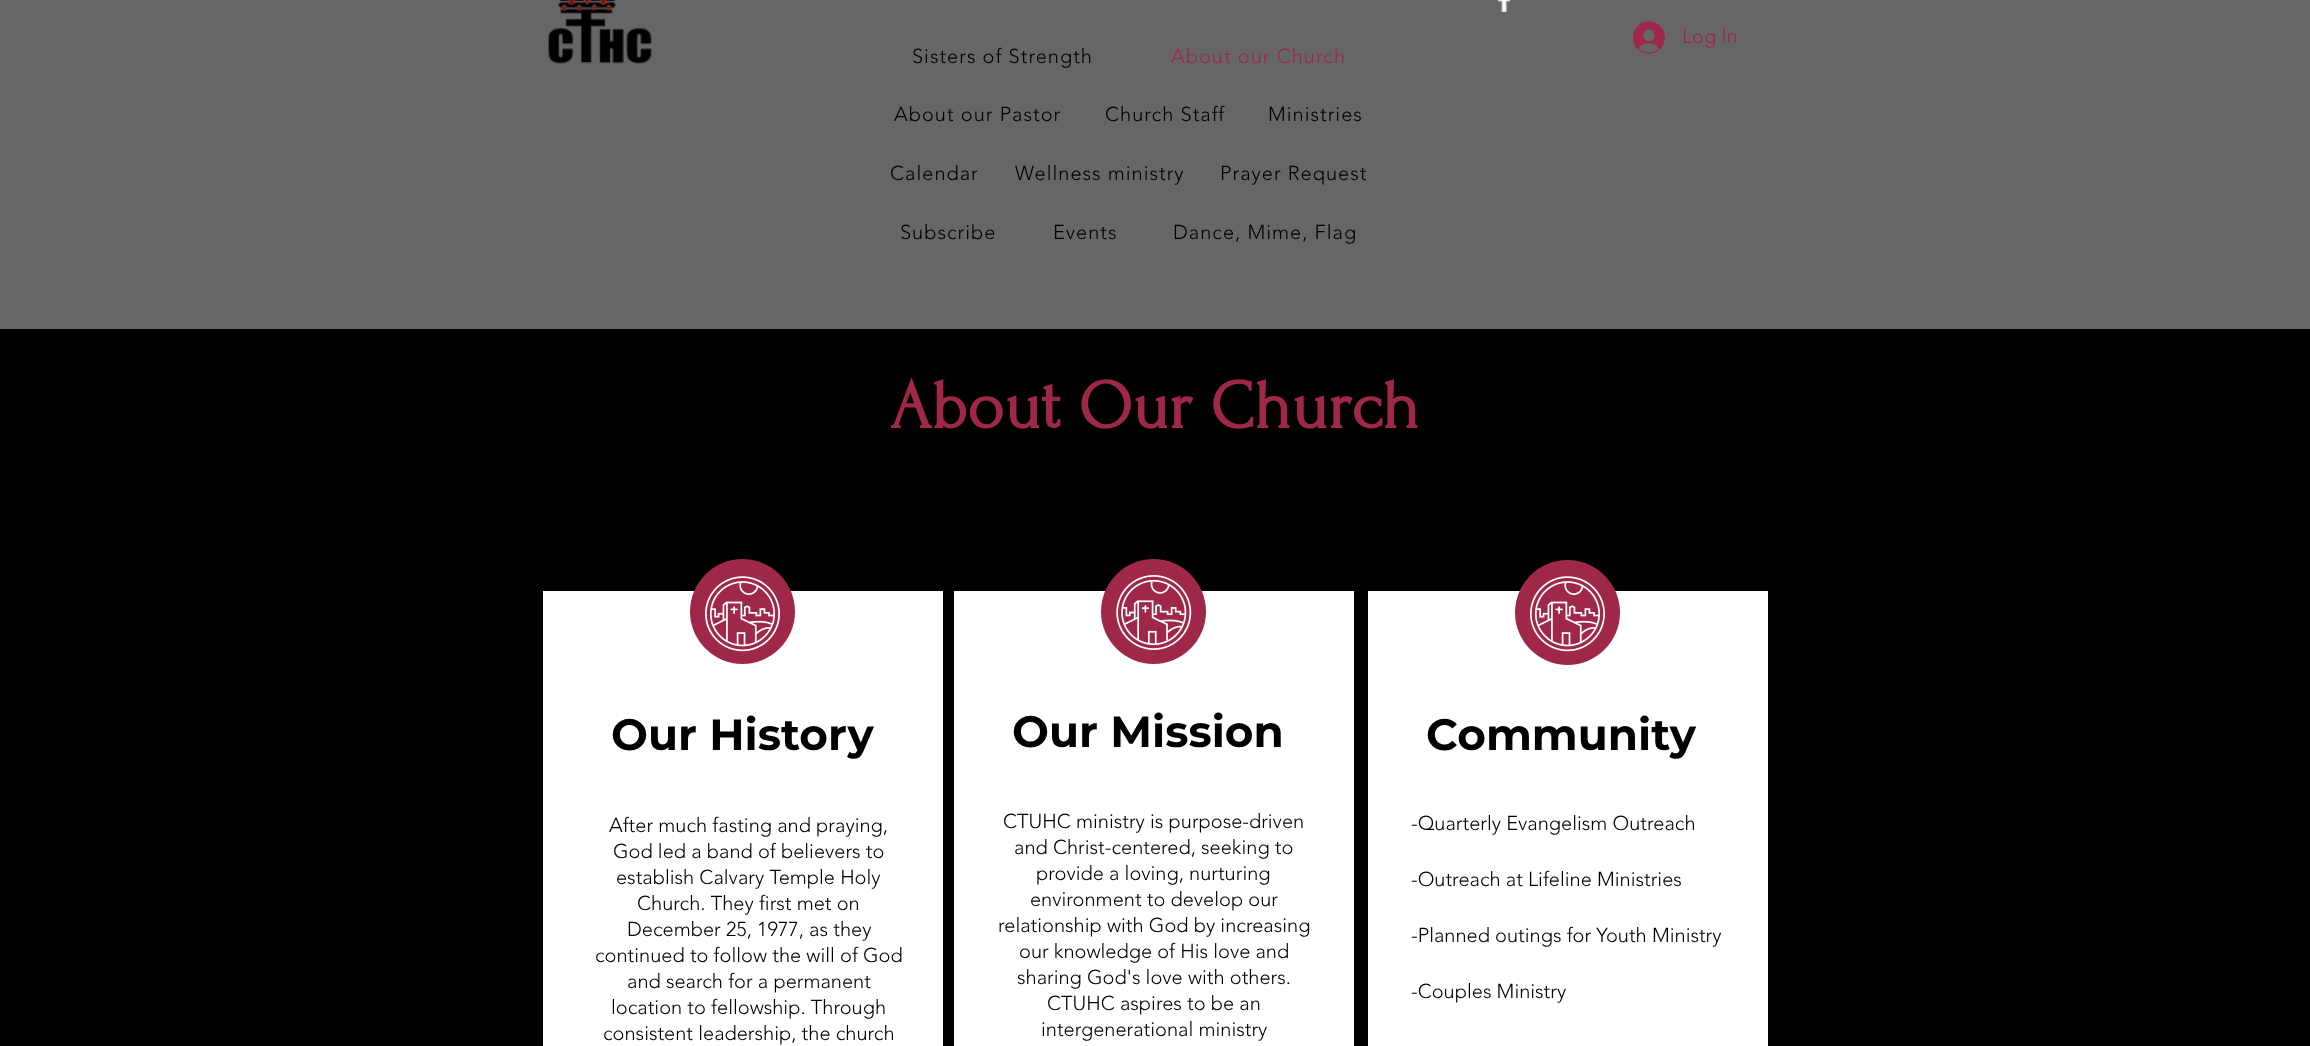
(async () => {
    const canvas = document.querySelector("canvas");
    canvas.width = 2310;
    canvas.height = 1046;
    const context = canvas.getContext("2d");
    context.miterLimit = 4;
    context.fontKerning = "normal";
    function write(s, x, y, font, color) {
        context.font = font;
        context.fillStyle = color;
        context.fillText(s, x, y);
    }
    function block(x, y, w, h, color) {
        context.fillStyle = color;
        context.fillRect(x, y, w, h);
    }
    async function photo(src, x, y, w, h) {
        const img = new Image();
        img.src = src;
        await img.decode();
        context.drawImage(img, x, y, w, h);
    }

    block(0, 0, 2310, 1046, "rgb(0, 0, 0)");
    block(0, 0, 2310, 329, "rgb(102, 102, 102)");
    await photo("media/1.png", 547, 0, 105, 64);
    await photo("media/2.png", 1497, 0, 14, 13);
    await photo("media/3.png", 1633, 21, 32, 33);
    write("Log In", 1682, 43, "300 20px 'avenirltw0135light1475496'", "rgb(159, 39, 71)");
    context.letterSpacing = "1px";
    write("Sisters of Strength", 912, 63, "300 20px 'avenirltw0135light1475496'", "rgb(0, 0, 0)");
    write("About our Church", 1171, 63, "300 20px 'avenirltw0135light1475496'", "rgb(159, 39, 71)");
    write("About our Pastor", 894, 121, "300 20px 'avenirltw0135light1475496'", "rgb(0, 0, 0)");
    write("Church Staff", 1105, 121, "300 20px 'avenirltw0135light1475496'", "rgb(0, 0, 0)");
    write("Ministries", 1268, 121, "300 20px 'avenirltw0135light1475496'", "rgb(0, 0, 0)");
    write("Calendar", 890, 180, "300 20px 'avenirltw0135light1475496'", "rgb(0, 0, 0)");
    write("Wellness ministry", 1015, 180, "300 20px 'avenirltw0135light1475496'", "rgb(0, 0, 0)");
    write("Prayer Request", 1220, 180, "300 20px 'avenirltw0135light1475496'", "rgb(0, 0, 0)");
    write("Subscribe", 900, 239, "300 20px 'avenirltw0135light1475496'", "rgb(0, 0, 0)");
    write("Events", 1053, 239, "300 20px 'avenirltw0135light1475496'", "rgb(0, 0, 0)");
    write("Dance, Mime, Flag", 1173, 239, "300 20px 'avenirltw0135light1475496'", "rgb(0, 0, 0)");
    context.letterSpacing = "0px";
    write("About Our Church", 890, 428, "bold 70px Forum", "rgb(159, 39, 71)");
    block(543, 591, 400, 455, "rgb(255, 255, 255)");
    context.fillStyle = "rgb(159, 39, 71)";
    context.beginPath();
    context.arc(742.5, 611.5, 52.5, 0, Math.PI * 2);
    context.fill();
    await photo("media/4.png", 705, 576, 75, 76);
    write("Our History", 611, 750, "bold 43.75px Montserrat", "rgb(0, 0, 0)");
    write("After much fasting and praying,", 609, 832, "300 20px 'avenirltw0135light1475496'", "rgb(0, 0, 0)");
    write("God led a band of believers to", 613, 858, "300 20px 'avenirltw0135light1475496'", "rgb(0, 0, 0)");
    write("establish Calvary Temple Holy", 616, 884, "300 20px 'avenirltw0135light1475496'", "rgb(0, 0, 0)");
    write("Church. They first met on", 637, 910, "300 20px 'avenirltw0135light1475496'", "rgb(0, 0, 0)");
    write("December 25, 1977, as they", 627, 936, "300 20px 'avenirltw0135light1475496'", "rgb(0, 0, 0)");
    write("continued to follow the will of God", 595, 962, "300 20px 'avenirltw0135light1475496'", "rgb(0, 0, 0)");
    write("and search for a permanent", 627, 988, "300 20px 'avenirltw0135light1475496'", "rgb(0, 0, 0)");
    write("location to fellowship. Through", 611, 1014, "300 20px 'avenirltw0135light1475496'", "rgb(0, 0, 0)");
    write("consistent leadership, the church", 603, 1040, "300 20px 'avenirltw0135light1475496'", "rgb(0, 0, 0)");
    block(954, 591, 400, 455, "rgb(255, 255, 255)");
    context.fillStyle = "rgb(159, 39, 71)";
    context.beginPath();
    context.arc(1153.5, 611.5, 52.5, 0, Math.PI * 2);
    context.fill();
    await photo("media/5.png", 1116, 575, 76, 75);
    write("Our Mission", 1012, 747, "bold 43.75px Montserrat", "rgb(0, 0, 0)");
    write("CTUHC ministry is purpose-driven", 1003, 828, "300 20px 'avenirltw0135light1475496'", "rgb(0, 0, 0)");
    write("and Christ-centered, seeking to", 1014, 854, "300 20px 'avenirltw0135light1475496'", "rgb(0, 0, 0)");
    write("provide a loving, nurturing", 1036, 880, "300 20px 'avenirltw0135light1475496'", "rgb(0, 0, 0)");
    write("environment to develop our", 1030, 906, "300 20px 'avenirltw0135light1475496'", "rgb(0, 0, 0)");
    write("relationship with God by increasing", 998, 932, "300 20px 'avenirltw0135light1475496'", "rgb(0, 0, 0)");
    write("our knowledge of His love and", 1019, 958, "300 20px 'avenirltw0135light1475496'", "rgb(0, 0, 0)");
    write("sharing God's love with others.", 1017, 984, "300 20px 'avenirltw0135light1475496'", "rgb(0, 0, 0)");
    write("CTUHC aspires to be an", 1047, 1010, "300 20px 'avenirltw0135light1475496'", "rgb(0, 0, 0)");
    write("intergenerational ministry", 1041, 1036, "300 20px 'avenirltw0135light1475496'", "rgb(0, 0, 0)");
    block(1368, 591, 400, 455, "rgb(255, 255, 255)");
    context.fillStyle = "rgb(159, 39, 71)";
    context.beginPath();
    context.arc(1567.5, 612.5, 52.5, 0, Math.PI * 2);
    context.fill();
    await photo("media/6.png", 1530, 576, 75, 76);
    write("Community", 1426, 750, "bold 43.75px Montserrat", "rgb(0, 0, 0)");
    write("-Quarterly Evangelism Outreach", 1411, 830, "300 20px 'avenirltw0135light1475496'", "rgb(0, 0, 0)");
    write("-Outreach at Lifeline Ministries", 1411, 886, "300 20px 'avenirltw0135light1475496'", "rgb(0, 0, 0)");
    write("-Planned outings for Youth Ministry", 1411, 942, "300 20px 'avenirltw0135light1475496'", "rgb(0, 0, 0)");
    write("-Couples Ministry", 1411, 998, "300 20px 'avenirltw0135light1475496'", "rgb(0, 0, 0)");
})();
